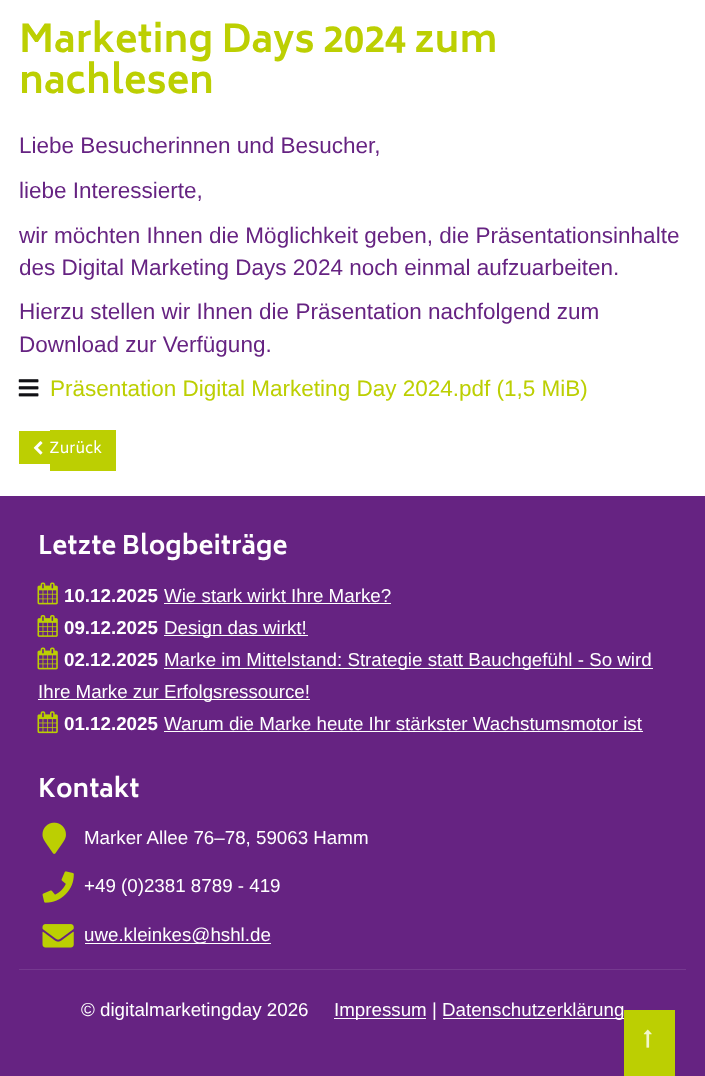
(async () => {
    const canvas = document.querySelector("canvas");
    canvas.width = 705;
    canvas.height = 1076;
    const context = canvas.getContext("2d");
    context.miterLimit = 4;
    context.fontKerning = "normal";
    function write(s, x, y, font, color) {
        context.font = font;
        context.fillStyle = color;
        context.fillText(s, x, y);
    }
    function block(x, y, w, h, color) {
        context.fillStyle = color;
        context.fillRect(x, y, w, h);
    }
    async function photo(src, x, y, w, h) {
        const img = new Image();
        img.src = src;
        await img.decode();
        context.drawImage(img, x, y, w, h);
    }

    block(0, 0, 705, 1076, "rgb(255, 255, 255)");
    write("Marketing Days 2024 zum", 19, 52, "bold 37.5px Biryani", "rgb(188, 207, 2)");
    write("nachlesen", 19, 93, "bold 37.5px Biryani", "rgb(188, 207, 2)");
    write("Liebe Besucherinnen und Besucher,", 19, 153, "22.5px Liberation Sans", "rgb(102, 35, 130)");
    write("liebe Interessierte,", 19, 198, "22.5px Liberation Sans", "rgb(102, 35, 130)");
    write("wir möchten Ihnen die Möglichkeit geben, die Präsentationsinhalte", 19, 243, "22.5px Liberation Sans", "rgb(102, 35, 130)");
    write("des Digital Marketing Days 2024 noch einmal aufzuarbeiten.", 19, 275, "22.5px Liberation Sans", "rgb(102, 35, 130)");
    write("Hierzu stellen wir Ihnen die Präsentation nachfolgend zum", 19, 319, "22.5px Liberation Sans", "rgb(102, 35, 130)");
    write("Download zur Verfügung.", 19, 352, "22.5px Liberation Sans", "rgb(102, 35, 130)");
    await photo("media/1.png", 18, 379, 21, 18);
    write("Präsentation Digital Marketing Day 2024.pdf (1,5 MiB)", 50, 396, "22.5px Liberation Sans", "rgb(188, 207, 2)");
    block(19, 431, 31, 33, "rgb(188, 207, 2)");
    await photo("media/2.png", 33, 441, 10, 14);
    block(50, 430, 66, 41, "rgb(188, 207, 2)");
    write("Zurück", 49, 453, "15px Biryani", "rgb(255, 255, 255)");
    block(0, 496, 705, 580, "rgb(102, 35, 130)");
    write("Letzte Blogbeiträge", 38, 554, "bold 25px Biryani", "rgb(255, 255, 255)");
    await photo("media/3.png", 37, 582, 21, 23);
    write("10.12.2025", 64, 602, "bold 18.75px Liberation Sans", "rgb(255, 255, 255)");
    write("Wie stark wirkt Ihre Marke?", 164, 602, "18.75px Liberation Sans", "rgb(255, 255, 255)");
    block(164, 603, 227, 1, "rgb(255, 255, 255)");
    await photo("media/4.png", 37, 615, 21, 22);
    write("09.12.2025", 64, 634, "bold 18.75px Liberation Sans", "rgb(255, 255, 255)");
    block(164, 635, 144, 1, "rgb(255, 255, 255)");
    write("Design das wirkt!", 164, 634, "18.75px Liberation Sans", "rgb(255, 255, 255)");
    await photo("media/3.png", 37, 647, 21, 23);
    write("02.12.2025", 64, 666, "bold 18.75px Liberation Sans", "rgb(255, 255, 255)");
    block(164, 668, 489, 1, "rgb(255, 255, 255)");
    write("Marke im Mittelstand: Strategie statt Bauchgefühl - So wird", 164, 666, "18.75px Liberation Sans", "rgb(255, 255, 255)");
    block(38, 699, 272, 1, "rgb(255, 255, 255)");
    write("Ihre Marke zur Erfolgsressource!", 38, 698, "18.75px Liberation Sans", "rgb(255, 255, 255)");
    await photo("media/5.png", 37, 711, 21, 23);
    write("01.12.2025", 64, 730, "bold 18.75px Liberation Sans", "rgb(255, 255, 255)");
    write("Warum die Marke heute Ihr stärkster Wachstumsmotor ist", 164, 730, "18.75px Liberation Sans", "rgb(255, 255, 255)");
    block(164, 731, 479, 1, "rgb(255, 255, 255)");
    write("Kontakt", 38, 797, "bold 25px Biryani", "rgb(255, 255, 255)");
    await photo("media/6.png", 42, 822, 24, 32);
    write("Marker Allee 76–78, 59063 Hamm", 84, 844, "18.75px Liberation Sans", "rgb(255, 255, 255)");
    await photo("media/7.png", 42, 871, 32, 32);
    write("+49 (0)2381 8789 - 419", 84, 892, "18.75px Liberation Sans", "rgb(255, 255, 255)");
    await photo("media/8.png", 42, 924, 32, 24);
    block(85, 943, 186, 1, "rgb(255, 255, 255)");
    write("uwe.kleinkes@hshl.de", 84, 941, "18.75px Liberation Sans", "rgb(255, 255, 255)");
    block(19, 969, 667, 1, "rgb(117, 57, 143)");
    write("© digitalmarketingday 2026", 81, 1016, "18.75px Liberation Sans", "rgb(255, 255, 255)");
    block(334, 1018, 92, 1, "rgb(255, 255, 255)");
    write("Impressum |", 334, 1016, "18.75px Liberation Sans", "rgb(255, 255, 255)");
    block(443, 1018, 182, 1, "rgb(255, 255, 255)");
    write("Datenschutzerklärung", 442, 1016, "18.75px Liberation Sans", "rgb(255, 255, 255)");
    block(624, 1010, 51, 66, "rgb(188, 207, 2)");
    await photo("media/9.png", 643, 1029, 9, 19);
})();
